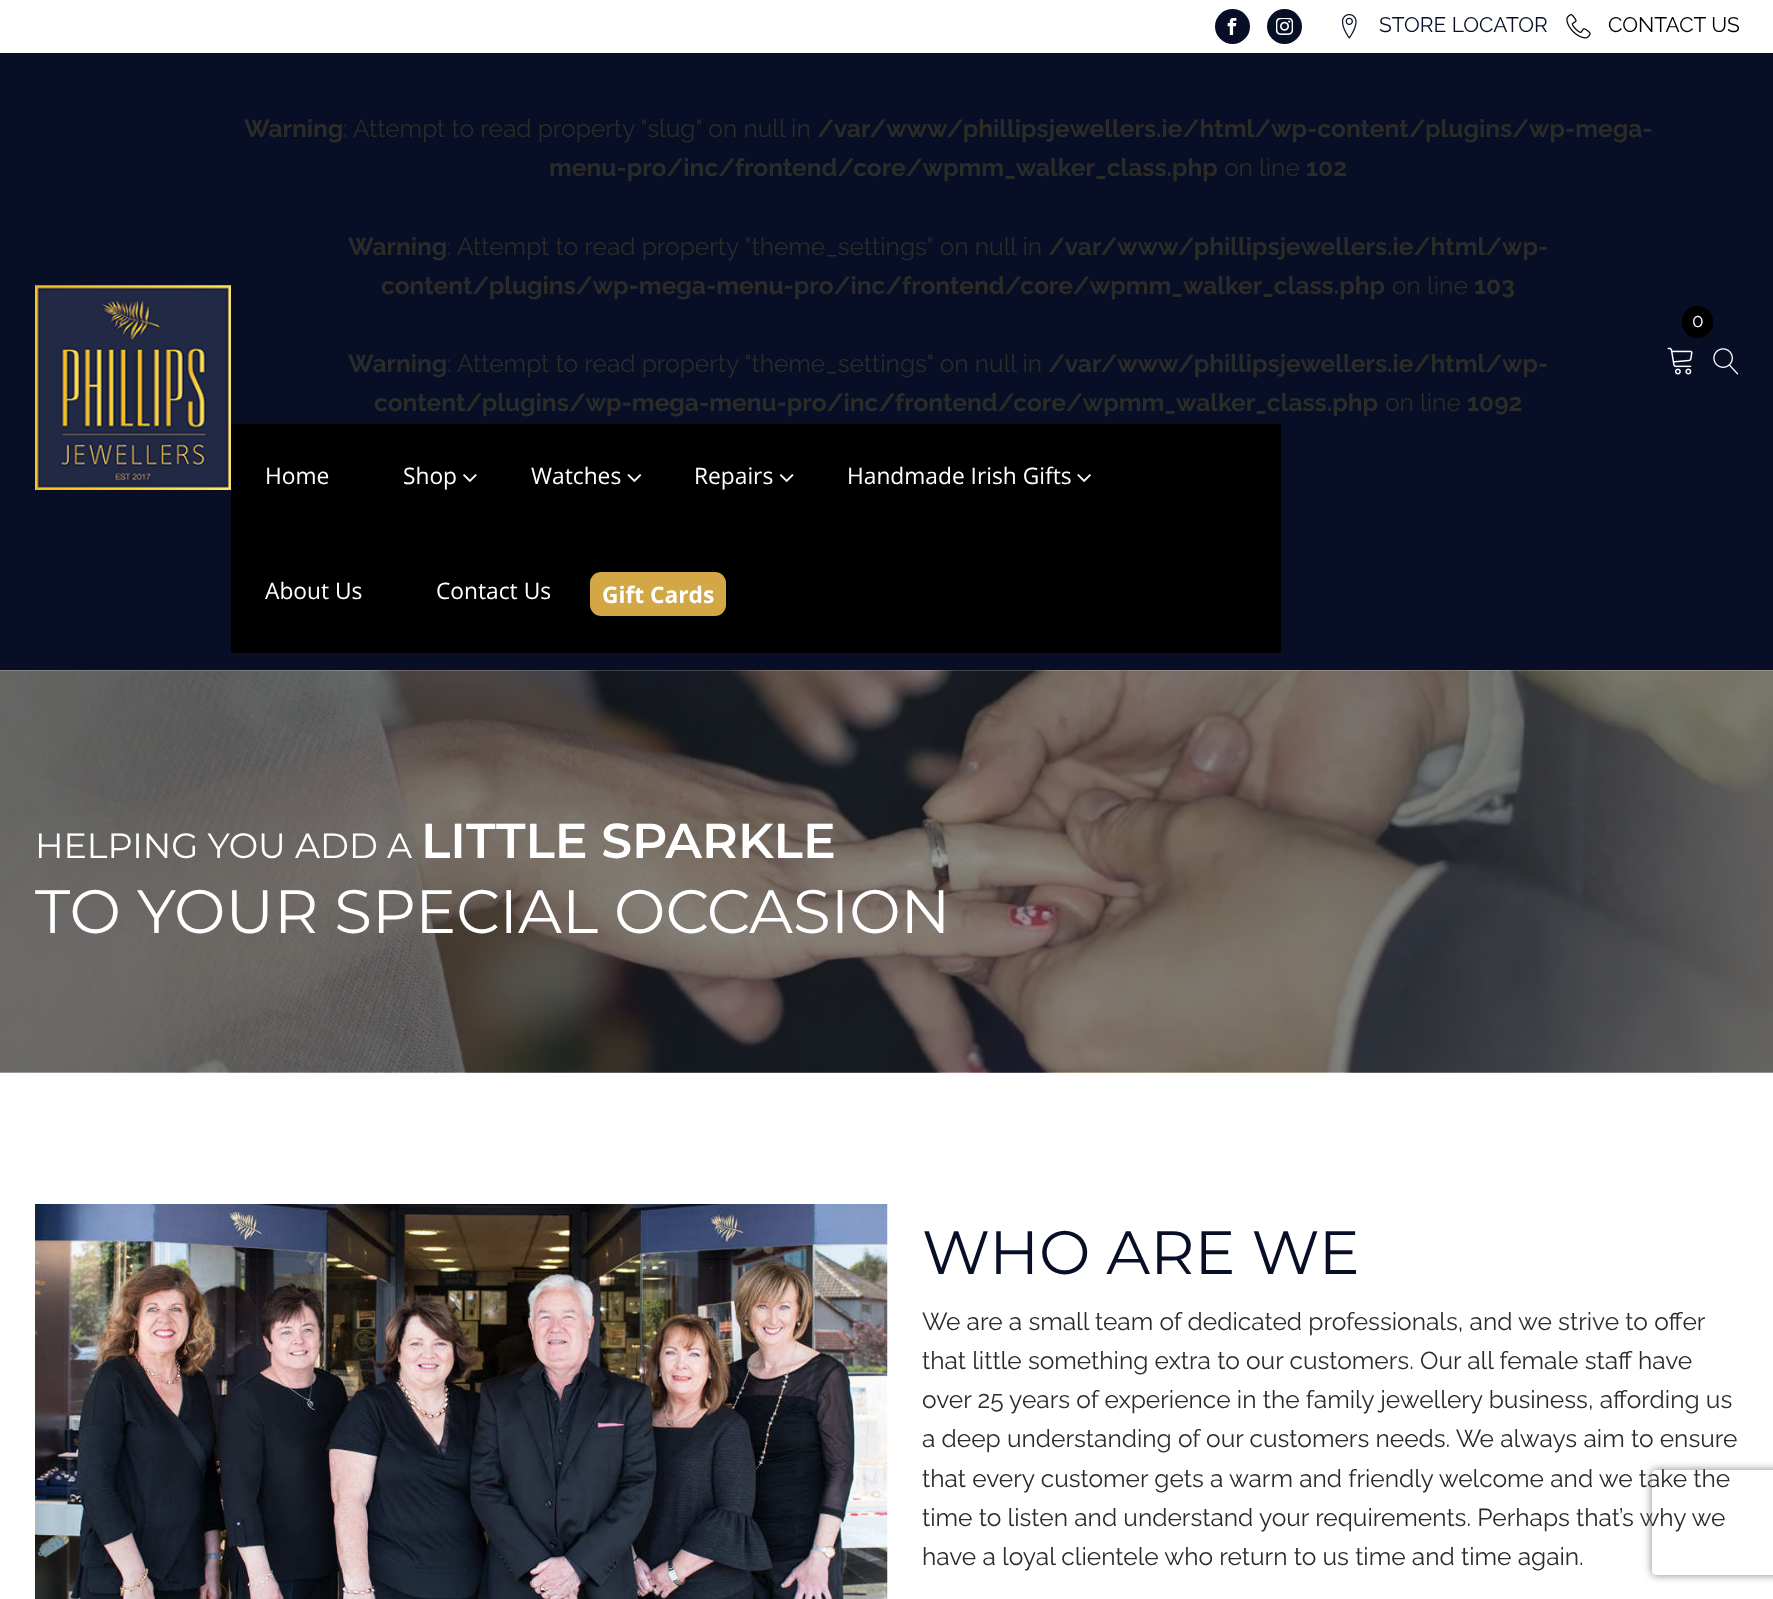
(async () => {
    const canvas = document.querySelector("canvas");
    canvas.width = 1773;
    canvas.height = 1599;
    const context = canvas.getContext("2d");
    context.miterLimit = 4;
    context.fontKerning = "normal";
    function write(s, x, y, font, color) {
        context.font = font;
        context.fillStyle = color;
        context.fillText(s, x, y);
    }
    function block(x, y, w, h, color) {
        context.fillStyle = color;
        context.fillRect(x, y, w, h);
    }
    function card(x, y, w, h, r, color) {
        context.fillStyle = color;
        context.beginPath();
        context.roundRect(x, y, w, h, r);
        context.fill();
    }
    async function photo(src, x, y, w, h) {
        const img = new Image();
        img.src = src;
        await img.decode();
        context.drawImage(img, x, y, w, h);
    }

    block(0, 0, 1773, 1599, "rgb(255, 255, 255)");
    context.fillStyle = "rgb(8, 14, 38)";
    context.beginPath();
    context.arc(1232.5, 26.5, 17.5, 0, Math.PI * 2);
    context.fill();
    await photo("media/1.png", 1227, 18, 10, 17);
    context.beginPath();
    context.arc(1284.5, 26.5, 17.5, 0, Math.PI * 2);
    context.fill();
    await photo("media/2.png", 1276, 18, 17, 17);
    await photo("media/3.png", 1341, 14, 16, 25);
    write("STORE LOCATOR", 1379, 32, "21px Raleway", "rgb(8, 14, 38)");
    await photo("media/4.png", 1566, 14, 25, 25);
    write("CONTACT US", 1608, 32, "21px Raleway", "rgb(0, 0, 0)");
    block(0, 53, 1773, 617, "rgb(8, 14, 38)");
    await photo("media/5.png", 35, 285, 196, 205);
    write("Warning", 244, 137, "bold 24.5px Raleway", "rgb(43, 44, 40)");
    write(":", 343, 137, "24.5px Raleway", "rgb(43, 44, 40)");
    write("Attempt to read property \"slug\" on null in", 353, 137, "24.5px Raleway", "rgb(43, 44, 40)");
    write("/var/www/phillipsjewellers.ie/html/wp-content/plugins/wp-mega-", 817, 137, "bold 24.5px Raleway", "rgb(43, 44, 40)");
    write("menu-pro/inc/frontend/core/wpmm_walker_class.php", 549, 176, "bold 24.5px Raleway", "rgb(43, 44, 40)");
    write("on line", 1224, 176, "24.5px Raleway", "rgb(43, 44, 40)");
    write("102", 1306, 176, "bold 24.5px Raleway", "rgb(43, 44, 40)");
    write("Warning", 348, 255, "bold 24.5px Raleway", "rgb(43, 44, 40)");
    write(":", 447, 255, "24.5px Raleway", "rgb(43, 44, 40)");
    write("Attempt to read property \"theme_settings\" on null in", 457, 255, "24.5px Raleway", "rgb(43, 44, 40)");
    write("/var/www/phillipsjewellers.ie/html/wp-", 1048, 255, "bold 24.5px Raleway", "rgb(43, 44, 40)");
    write("content/plugins/wp-mega-menu-pro/inc/frontend/core/wpmm_walker_class.php", 381, 294, "bold 24.5px Raleway", "rgb(43, 44, 40)");
    write("on line", 1392, 294, "24.5px Raleway", "rgb(43, 44, 40)");
    write("103", 1474, 294, "bold 24.5px Raleway", "rgb(43, 44, 40)");
    write("Warning", 348, 372, "bold 24.5px Raleway", "rgb(43, 44, 40)");
    write(":", 447, 372, "24.5px Raleway", "rgb(43, 44, 40)");
    write("Attempt to read property \"theme_settings\" on null in", 457, 372, "24.5px Raleway", "rgb(43, 44, 40)");
    write("/var/www/phillipsjewellers.ie/html/wp-", 1048, 372, "bold 24.5px Raleway", "rgb(43, 44, 40)");
    write("content/plugins/wp-mega-menu-pro/inc/frontend/core/wpmm_walker_class.php", 374, 411, "bold 24.5px Raleway", "rgb(43, 44, 40)");
    write("on line", 1385, 411, "24.5px Raleway", "rgb(43, 44, 40)");
    write("1092", 1467, 411, "bold 24.5px Raleway", "rgb(43, 44, 40)");
    block(231, 424, 1050, 229, "rgb(0, 0, 0)");
    write("Home", 265, 484, "22.75px Open Sans", "rgb(255, 255, 255)");
    write("Shop", 403, 484, "22.75px Open Sans", "rgb(255, 255, 255)");
    await photo("media/6.png", 463, 474, 14, 8);
    write("Watches", 531, 484, "22.75px Open Sans", "rgb(255, 255, 255)");
    await photo("media/7.png", 627, 474, 15, 8);
    write("Repairs", 694, 484, "22.75px Open Sans", "rgb(255, 255, 255)");
    await photo("media/8.png", 779, 474, 15, 8);
    write("Handmade Irish Gifts", 847, 484, "22.75px Open Sans", "rgb(255, 255, 255)");
    await photo("media/9.png", 1077, 474, 14, 8);
    write("About Us", 265, 599, "22.75px Open Sans", "rgb(255, 255, 255)");
    write("Contact Us", 436, 599, "22.75px Open Sans", "rgb(255, 255, 255)");
    card(590, 572, 136, 44, 11, "rgb(211, 167, 70)");
    write("Gift Cards", 602, 603, "bold 22.75px Open Sans", "rgb(255, 255, 255)");
    card(1682, 306, 31, 32, 15.5, "rgb(0, 0, 0)");
    write("0", 1692, 327, "19px Raleway", "rgb(255, 255, 255)");
    await photo("media/10.png", 1667, 347, 26, 28);
    await photo("media/11.png", 1713, 348, 26, 27);
    await photo("media/12.png", 0, 670, 1773, 403);
    write("HELPING YOU ADD A", 35, 858, "35px Montserrat", "rgb(255, 255, 255)");
    write("LITTLE SPARKLE", 421, 858, "600 49px Montserrat", "rgb(255, 255, 255)");
    write("TO YOUR SPECIAL OCCASION", 35, 933, "61.25px Montserrat", "rgb(255, 255, 255)");
    await photo("media/13.png", 35, 1204, 853, 395);
    write("WHO ARE WE", 922, 1274, "61.25px Montserrat", "rgb(8, 14, 38)");
    write("We are a small team of dedicated professionals, and we strive to offer", 922, 1330, "24.5px Raleway", "rgb(43, 44, 40)");
    write("that little something extra to our customers. Our all female staff have", 922, 1369, "24.5px Raleway", "rgb(43, 44, 40)");
    write("over 25 years of experience in the family jewellery business, affording us", 922, 1408, "24.5px Raleway", "rgb(43, 44, 40)");
    write("a deep understanding of our customers needs. We always aim to ensure", 922, 1447, "24.5px Raleway", "rgb(43, 44, 40)");
    write("that every customer gets a warm and friendly welcome and we take the", 922, 1487, "24.5px Raleway", "rgb(43, 44, 40)");
    write("time to listen and understand your requirements. Perhaps that’s why we", 922, 1526, "24.5px Raleway", "rgb(43, 44, 40)");
    write("have a loyal clientele who return to us time and time again.", 922, 1565, "24.5px Raleway", "rgb(43, 44, 40)");
    context.save();
    context.beginPath();
    context.moveTo(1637, 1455);
    context.lineTo(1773, 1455);
    context.lineTo(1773, 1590);
    context.lineTo(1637, 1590);
    context.closePath();
    context.moveTo(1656, 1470);
    context.lineTo(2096, 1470);
    context.bezierCurveTo(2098, 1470, 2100, 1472, 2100, 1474);
    context.lineTo(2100, 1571);
    context.bezierCurveTo(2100, 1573, 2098, 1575, 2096, 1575);
    context.lineTo(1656, 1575);
    context.bezierCurveTo(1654, 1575, 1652, 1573, 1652, 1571);
    context.lineTo(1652, 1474);
    context.bezierCurveTo(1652, 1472, 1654, 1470, 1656, 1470);
    context.closePath();
    context.clip("evenodd");
    context.fillStyle = "rgb(128, 128, 128)";
    context.filter = "blur(4.5px)";
    context.beginPath();
    context.roundRect(1652, 1470, 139, 105, 4);
    context.fill();
    context.filter = "none";
    context.restore();
})();
